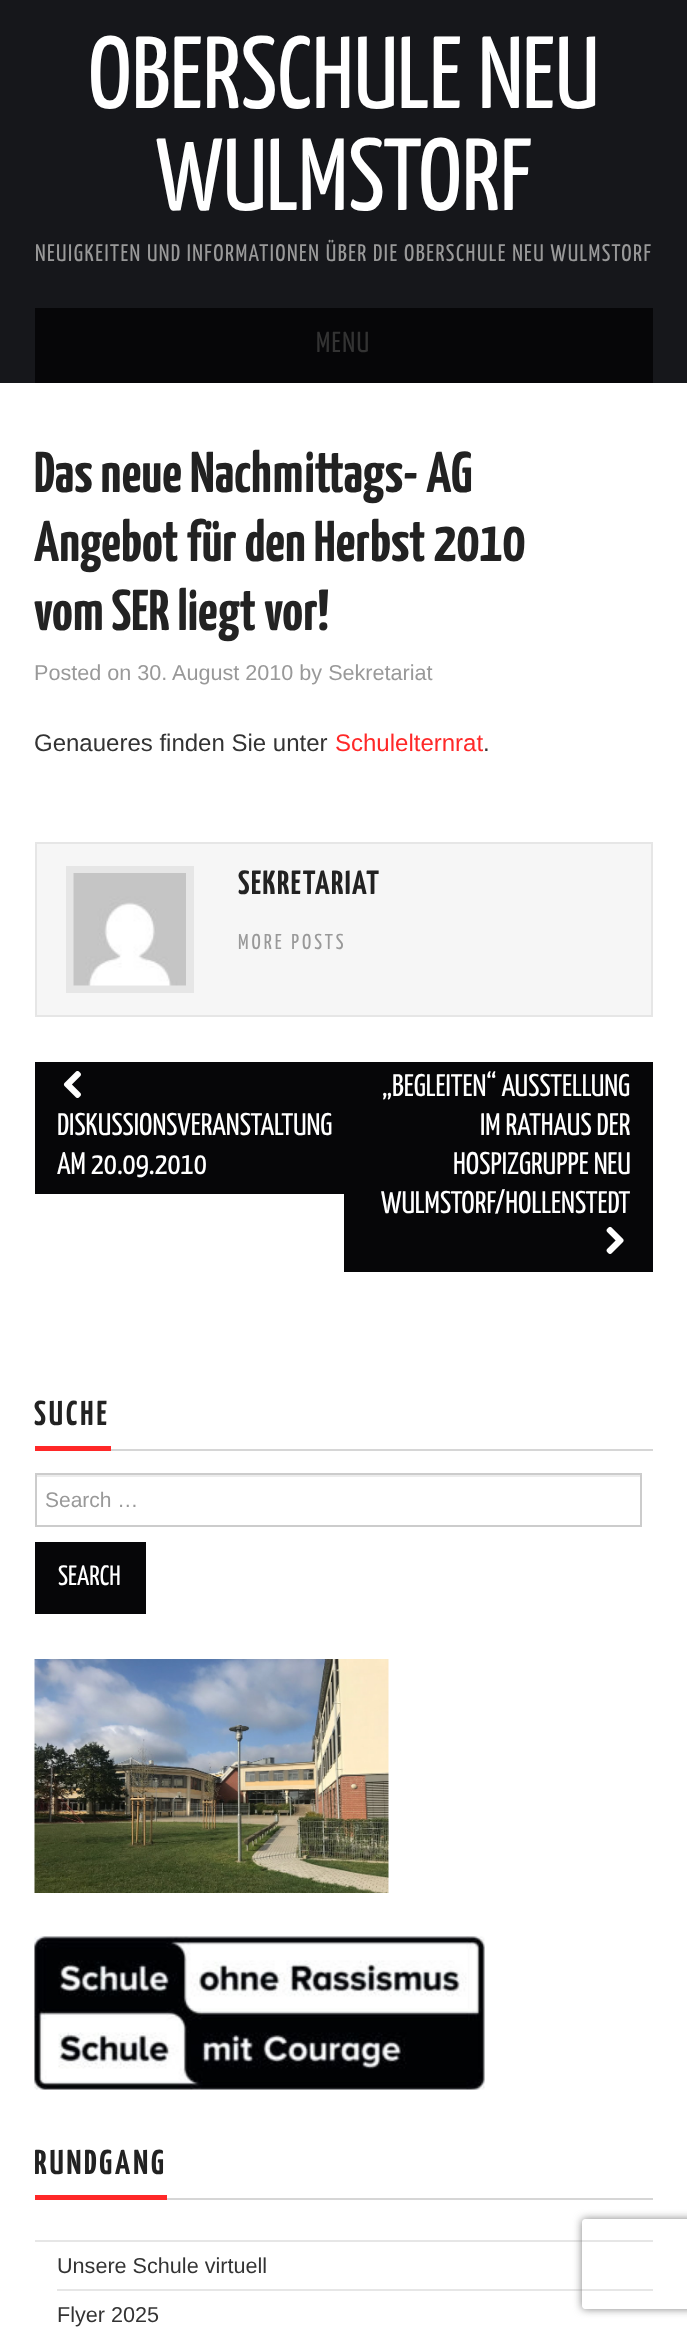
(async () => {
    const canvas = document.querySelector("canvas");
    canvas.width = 687;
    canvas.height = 2329;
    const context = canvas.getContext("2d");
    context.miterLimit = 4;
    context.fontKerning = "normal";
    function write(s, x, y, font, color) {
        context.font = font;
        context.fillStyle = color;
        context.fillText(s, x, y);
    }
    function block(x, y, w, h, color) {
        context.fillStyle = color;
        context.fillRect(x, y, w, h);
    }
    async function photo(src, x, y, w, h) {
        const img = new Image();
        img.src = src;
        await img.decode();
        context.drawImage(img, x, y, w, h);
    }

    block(0, 0, 687, 2329, "rgb(255, 255, 255)");
    block(0, 0, 687, 383, "rgb(22, 23, 27)");
    write("OBERSCHULE NEU", 88, 108, "102px Yanone Kaffeesatz", "rgb(255, 255, 255)");
    write("WULMSTORF", 156, 210, "102px Yanone Kaffeesatz", "rgb(255, 255, 255)");
    context.letterSpacing = "1.5px";
    write("NEUIGKEITEN UND INFORMATIONEN ÜBER DIE OBERSCHULE NEU WULMSTORF", 35, 261, "24px Yanone Kaffeesatz", "rgb(153, 153, 153)");
    block(35, 308, 618, 75, "rgb(6, 6, 8)");
    write("MENU", 316, 352, "29px Yanone Kaffeesatz", "rgb(51, 51, 51)");
    context.letterSpacing = "0px";
    write("Das neue Nachmittags- AG", 34, 492, "bold 57.5px Yanone Kaffeesatz", "rgb(34, 34, 34)");
    write("Angebot für den Herbst 2010", 34, 561, "bold 57.5px Yanone Kaffeesatz", "rgb(34, 34, 34)");
    write("vom SER liegt vor!", 34, 630, "bold 57.5px Yanone Kaffeesatz", "rgb(34, 34, 34)");
    write("Posted on 30. August 2010 by Sekretariat", 34, 680, "21.6px Liberation Sans", "rgb(153, 153, 153)");
    write("Genaueres finden Sie unter", 34, 751, "24px Liberation Sans", "rgb(51, 51, 51)");
    write("Schulelternrat", 335, 751, "24px Liberation Sans", "rgb(255, 40, 40)");
    write(".", 483, 751, "24px Liberation Sans", "rgb(51, 51, 51)");
    context.fillStyle = "rgb(246, 246, 246)";
    context.beginPath();
    context.rect(36, 843, 616, 173);
    context.fill();
    context.strokeStyle = "rgb(230, 230, 230)";
    context.lineWidth = 2;
    context.stroke();
    context.lineWidth = 8;
    context.strokeRect(70, 870, 120, 119);
    await photo("media/1.png", 73, 873, 113, 113);
    context.letterSpacing = "1.5px";
    write("SEKRETARIAT", 238, 894, "bold 33.5px Yanone Kaffeesatz", "rgb(34, 34, 34)");
    context.letterSpacing = "3px";
    write("MORE POSTS", 238, 949, "21.6px Yanone Kaffeesatz", "rgb(153, 153, 153)");
    block(35, 1062, 309, 132, "rgb(6, 6, 8)");
    await photo("media/2.png", 63, 1071, 18, 27);
    context.letterSpacing = "0px";
    write("DISKUSSIONSVERANSTALTUNG", 57, 1135, "31.25px Yanone Kaffeesatz", "rgb(255, 255, 255)");
    write("AM 20.09.2010", 57, 1174, "31.25px Yanone Kaffeesatz", "rgb(255, 255, 255)");
    block(344, 1062, 309, 210, "rgb(6, 6, 8)");
    write("„BEGLEITEN“ AUSSTELLUNG", 382, 1096, "31.25px Yanone Kaffeesatz", "rgb(255, 255, 255)");
    write("IM RATHAUS DER", 480, 1135, "31.25px Yanone Kaffeesatz", "rgb(255, 255, 255)");
    write("HOSPIZGRUPPE NEU", 453, 1174, "31.25px Yanone Kaffeesatz", "rgb(255, 255, 255)");
    write("WULMSTORF/HOLLENSTEDT", 381, 1213, "31.25px Yanone Kaffeesatz", "rgb(255, 255, 255)");
    await photo("media/3.png", 606, 1226, 18, 28);
    block(111, 1449, 542, 2, "rgb(214, 214, 214)");
    block(35, 1446, 76, 5, "rgb(255, 40, 40)");
    context.letterSpacing = "3px";
    write("SUCHE", 34, 1425, "bold 34.5px Yanone Kaffeesatz", "rgb(34, 34, 34)");
    block(36, 1475, 605, 2, "rgb(236, 236, 236)");
    context.strokeStyle = "rgb(204, 204, 204)";
    context.lineWidth = 2;
    context.strokeRect(36, 1474, 605, 52);
    context.letterSpacing = "0px";
    write("Search …", 45, 1507, "21px Liberation Sans", "rgb(153, 153, 153)");
    block(35, 1542, 111, 72, "rgb(6, 6, 8)");
    write("SEARCH", 58, 1585, "28px Yanone Kaffeesatz", "rgb(255, 255, 255)");
    await photo("media/4.png", 34, 1659, 355, 234);
    await photo("media/5.png", 34, 1936, 451, 154);
    block(167, 2198, 486, 2, "rgb(214, 214, 214)");
    block(35, 2195, 132, 5, "rgb(255, 40, 40)");
    context.letterSpacing = "3px";
    write("RUNDGANG", 34, 2174, "bold 34.5px Yanone Kaffeesatz", "rgb(34, 34, 34)");
    block(35, 2240, 618, 2, "rgb(230, 230, 230)");
    block(57, 2289, 596, 2, "rgb(230, 230, 230)");
    context.letterSpacing = "0px";
    write("Unsere Schule virtuell", 57, 2273, "21.6px Liberation Sans", "rgb(51, 51, 51)");
    write("Flyer 2025", 57, 2322, "21.6px Liberation Sans", "rgb(51, 51, 51)");
    context.save();
    context.beginPath();
    context.moveTo(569, 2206);
    context.lineTo(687, 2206);
    context.lineTo(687, 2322);
    context.lineTo(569, 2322);
    context.closePath();
    context.moveTo(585, 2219);
    context.lineTo(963, 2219);
    context.bezierCurveTo(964.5, 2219, 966, 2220.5, 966, 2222);
    context.lineTo(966, 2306);
    context.bezierCurveTo(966, 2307.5, 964.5, 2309, 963, 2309);
    context.lineTo(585, 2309);
    context.bezierCurveTo(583.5, 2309, 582, 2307.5, 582, 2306);
    context.lineTo(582, 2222);
    context.bezierCurveTo(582, 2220.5, 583.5, 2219, 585, 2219);
    context.closePath();
    context.clip("evenodd");
    context.fillStyle = "rgb(128, 128, 128)";
    context.filter = "blur(4px)";
    context.beginPath();
    context.roundRect(582, 2219, 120, 90, 3);
    context.fill();
    context.filter = "none";
    context.restore();
})();
